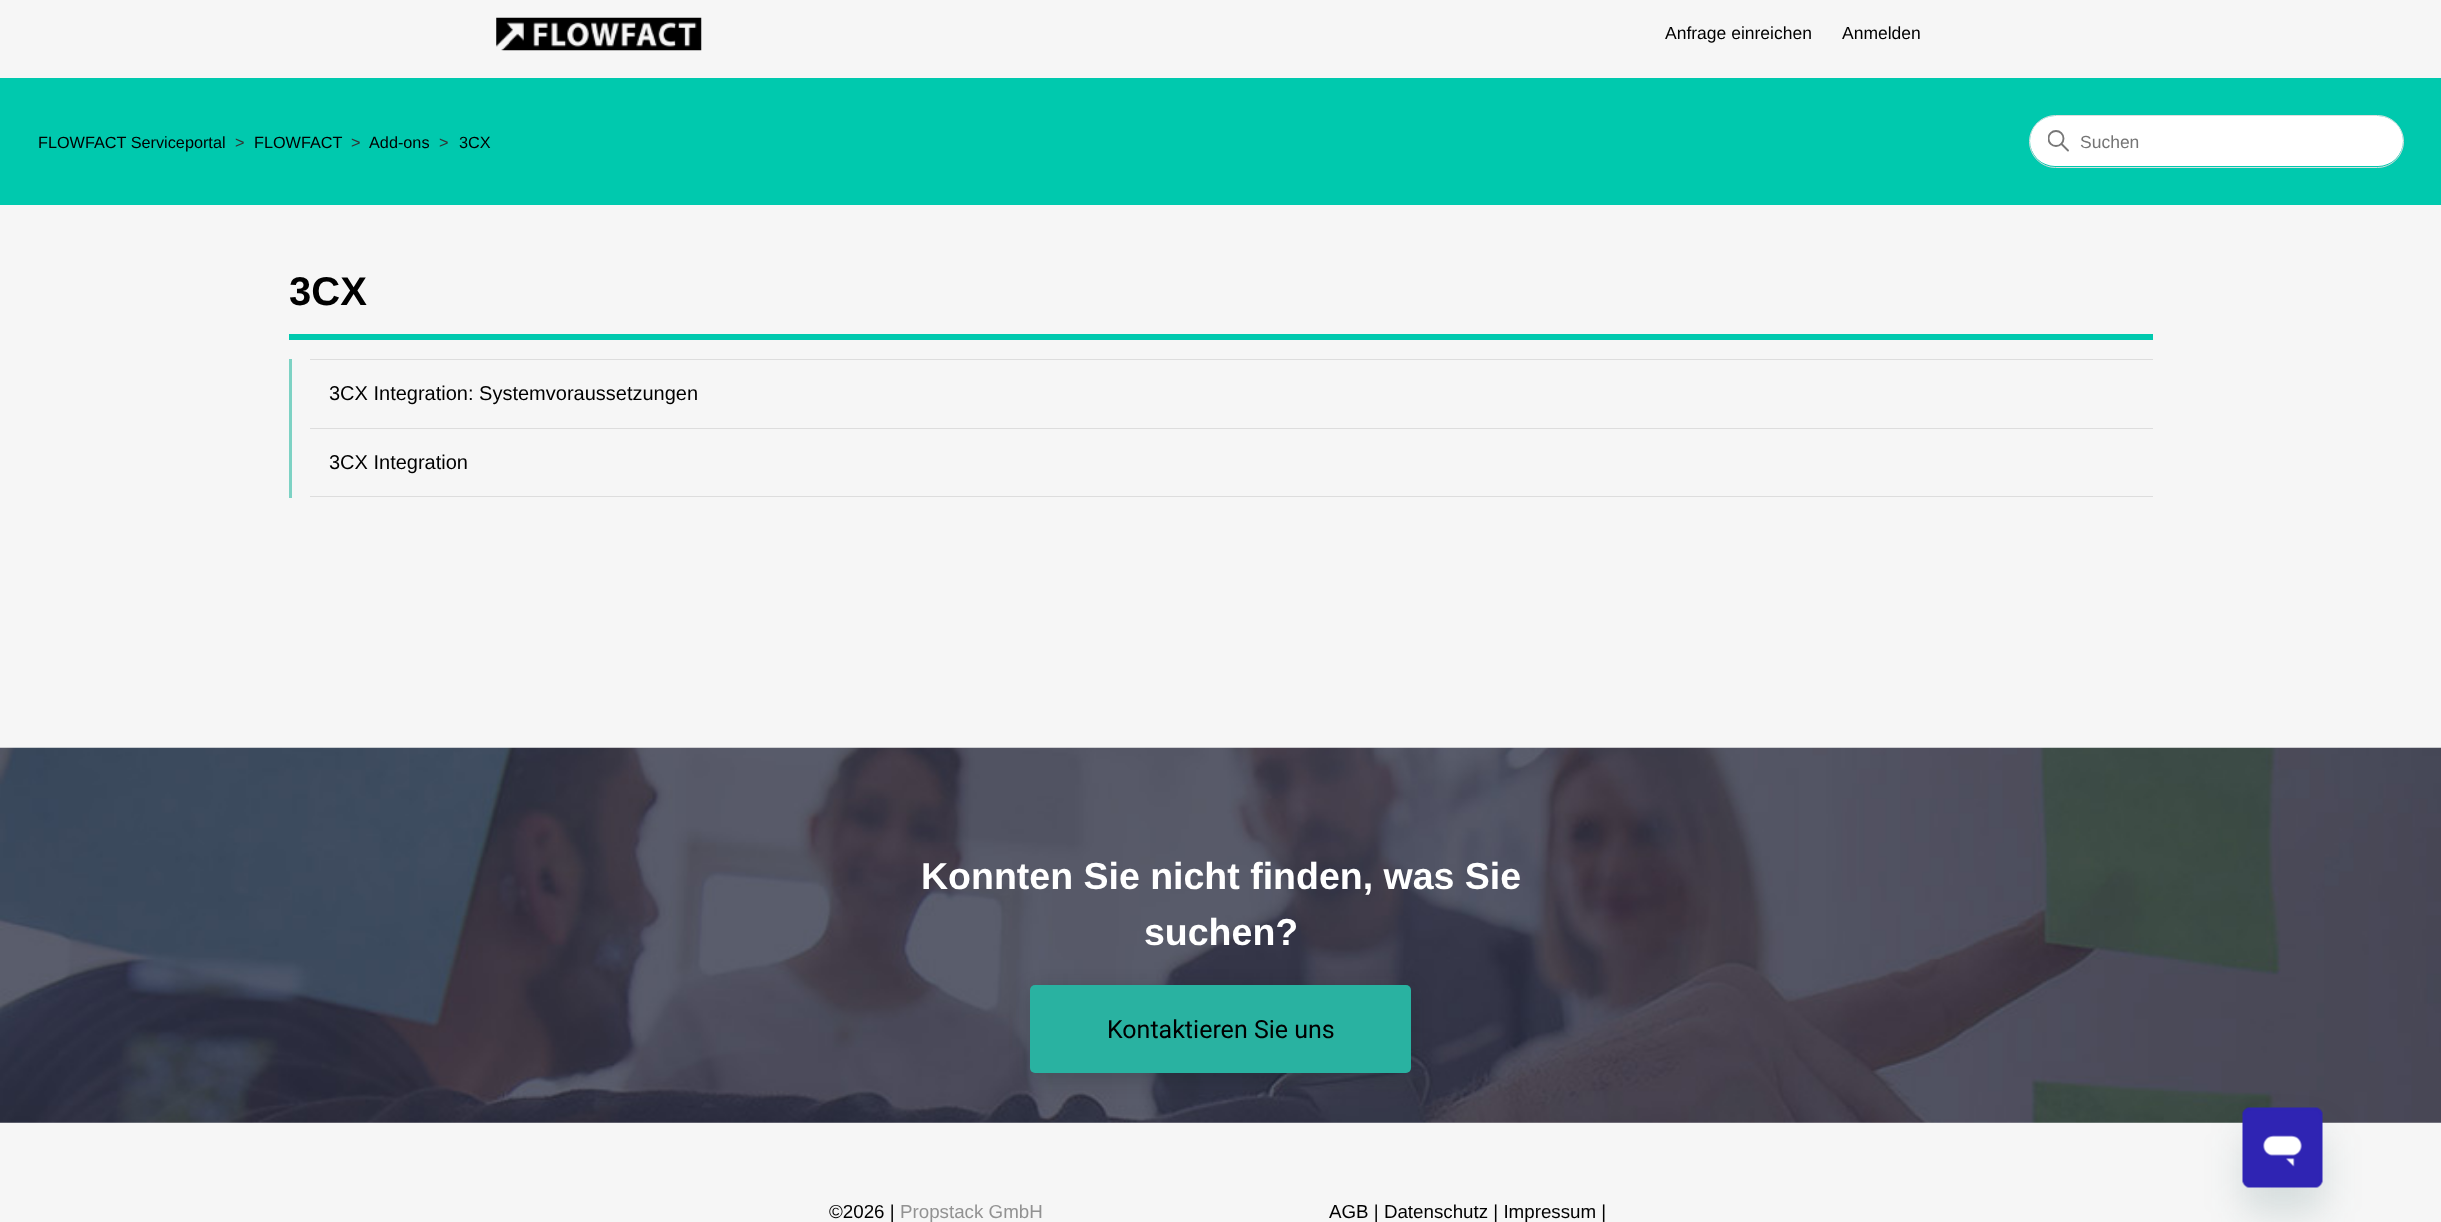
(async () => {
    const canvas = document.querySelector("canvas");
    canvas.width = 2441;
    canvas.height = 1222;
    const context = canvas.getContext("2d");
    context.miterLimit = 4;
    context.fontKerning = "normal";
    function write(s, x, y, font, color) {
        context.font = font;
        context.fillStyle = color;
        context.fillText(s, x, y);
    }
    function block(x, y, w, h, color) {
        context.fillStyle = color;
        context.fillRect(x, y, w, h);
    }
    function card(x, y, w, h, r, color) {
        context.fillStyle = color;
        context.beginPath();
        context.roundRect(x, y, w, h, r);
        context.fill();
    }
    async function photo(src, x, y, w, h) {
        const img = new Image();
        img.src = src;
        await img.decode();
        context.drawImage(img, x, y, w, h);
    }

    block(0, 0, 2441, 1222, "rgb(246, 246, 246)");
    await photo("media/1.png", 496, 17, 206, 34);
    write("Anfrage einreichen", 1665, 39, "17.5px Liberation Sans", "rgb(0, 0, 0)");
    write("Anmelden", 1842, 39, "17.5px Liberation Sans", "rgb(0, 0, 0)");
    block(0, 78, 2441, 127, "rgb(0, 201, 174)");
    write("FLOWFACT Serviceportal", 38, 148, "16.25px Liberation Sans", "rgb(0, 0, 0)");
    write(">", 235, 148, "16.25px Liberation Sans", "rgb(51, 51, 51)");
    write("FLOWFACT", 254, 148, "16.25px Liberation Sans", "rgb(0, 0, 0)");
    write(">", 351, 148, "16.25px Liberation Sans", "rgb(51, 51, 51)");
    write("Add-ons", 369, 148, "16.25px Liberation Sans", "rgb(0, 0, 0)");
    write(">", 439, 148, "16.25px Liberation Sans", "rgb(51, 51, 51)");
    write("3CX", 459, 148, "16.25px Liberation Sans", "rgb(0, 0, 0)");
    context.beginPath();
    context.roundRect(2029.5, 115.5, 374, 52, 26);
    context.strokeStyle = "rgb(221, 221, 221)";
    context.stroke();
    card(2030, 116, 373, 50, 25, "rgb(255, 255, 255)");
    context.save();
    context.beginPath();
    context.rect(2048, 130, 22, 23);
    context.clip();
    context.beginPath();
    context.arc(2056, 138.5, 7.5, 0, Math.PI * 2);
    context.strokeStyle = "rgb(119, 119, 119)";
    context.lineWidth = 1.9;
    context.stroke();
    context.restore();
    context.beginPath();
    context.moveTo(2068, 150.5);
    context.lineTo(2061.5, 144);
    context.strokeStyle = "rgb(119, 119, 119)";
    context.lineWidth = 1.9;
    context.lineCap = "round";
    context.stroke();
    write("Suchen", 2080, 148, "17.5px Liberation Sans", "rgb(117, 117, 117)");
    block(289, 334, 1864, 6, "rgb(0, 201, 174)");
    write("3CX", 289, 305, "bold 40px Liberation Sans", "rgb(0, 0, 0)");
    block(289, 359, 3, 139, "rgb(125, 210, 196)");
    block(310, 359, 1843, 1, "rgb(221, 221, 221)");
    block(310, 428, 1843, 1, "rgb(221, 221, 221)");
    write("3CX Integration: Systemvoraussetzungen", 329, 400, "20px Liberation Sans", "rgb(0, 0, 0)");
    block(310, 496, 1843, 1, "rgb(221, 221, 221)");
    write("3CX Integration", 329, 469, "20px Liberation Sans", "rgb(0, 0, 0)");
    await photo("media/2.png", 0, 747, 2441, 376);
    write("Konnten Sie nicht finden, was Sie", 921, 889, "bold 37.5px Liberation Sans", "rgb(255, 255, 255)");
    write("suchen?", 1144, 945, "bold 37.5px Liberation Sans", "rgb(255, 255, 255)");
    context.fillStyle = "rgba(0, 20, 20, 0.2)";
    context.filter = "blur(10px)";
    context.beginPath();
    context.roundRect(1030, 990, 381, 88, 5);
    context.fill();
    context.filter = "none";
    card(1030, 985, 381, 88, 5, "rgb(41, 178, 161)");
    write("Kontaktieren Sie uns", 1107, 1038, "25px Roboto", "rgb(0, 0, 0)");
    write("©2026 |", 829, 1218, "18.75px Liberation Sans", "rgb(0, 0, 0)");
    write("Propstack GmbH", 900, 1218, "18.75px Liberation Sans", "rgb(146, 146, 146)");
    write("AGB | Datenschutz | Impressum |", 1329, 1218, "18.75px Liberation Sans", "rgb(0, 0, 0)");
    context.fillStyle = "rgba(23, 73, 77, 0.15)";
    context.filter = "blur(19px)";
    context.beginPath();
    context.roundRect(2243, 1133, 80, 80, 8);
    context.fill();
    context.filter = "none";
    await photo("media/3.png", 2242, 1107, 81, 81);
})();
